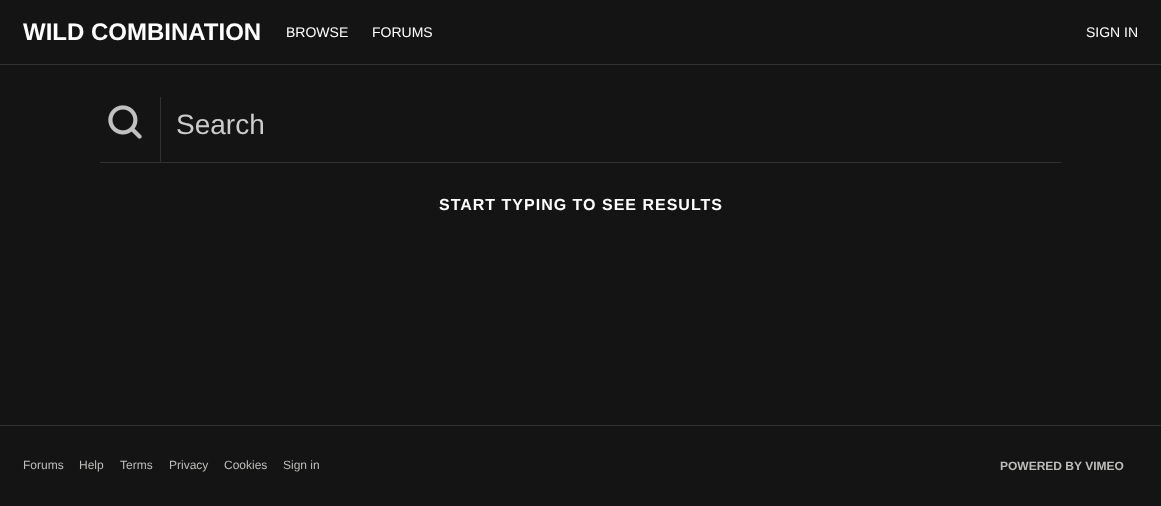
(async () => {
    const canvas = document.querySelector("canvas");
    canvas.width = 1161;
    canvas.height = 506;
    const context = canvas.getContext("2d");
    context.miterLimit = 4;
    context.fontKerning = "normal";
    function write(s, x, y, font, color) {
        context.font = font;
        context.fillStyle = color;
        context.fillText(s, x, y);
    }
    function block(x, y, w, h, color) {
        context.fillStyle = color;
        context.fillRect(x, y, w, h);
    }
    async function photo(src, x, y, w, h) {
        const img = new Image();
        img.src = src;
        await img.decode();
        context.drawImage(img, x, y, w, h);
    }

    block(0, 0, 1161, 506, "rgb(20, 20, 20)");
    block(0, 64, 1161, 1, "rgb(50, 50, 50)");
    write("WILD COMBINATION", 23, 40, "bold 24px Liberation Sans", "rgb(255, 255, 255)");
    write("BROWSE", 286, 37, "14px Liberation Sans", "rgb(255, 255, 255)");
    write("FORUMS", 372, 37, "14px Liberation Sans", "rgb(255, 255, 255)");
    write("SIGN IN", 1086, 37, "14px Liberation Sans", "rgb(255, 255, 255)");
    block(100, 162, 961, 1, "rgb(50, 50, 50)");
    block(160, 97, 1, 65, "rgb(50, 50, 50)");
    await photo("media/1.png", 108, 105, 34, 34);
    write("Search", 176, 134, "28px Liberation Sans", "rgb(204, 204, 204)");
    context.letterSpacing = "1px";
    write("START TYPING TO SEE RESULTS", 439, 210, "bold 16px Liberation Sans", "rgb(255, 255, 255)");
    block(0, 425, 1161, 1, "rgb(50, 50, 50)");
    context.letterSpacing = "0px";
    write("Forums", 23, 469, "12px Liberation Sans", "rgb(190, 190, 187)");
    write("Help", 79, 469, "12px Liberation Sans", "rgb(190, 190, 187)");
    write("Terms", 120, 469, "12px Liberation Sans", "rgb(190, 190, 187)");
    write("Privacy", 169, 469, "12px Liberation Sans", "rgb(190, 190, 187)");
    write("Cookies", 224, 469, "12px Liberation Sans", "rgb(190, 190, 187)");
    write("Sign in", 283, 469, "12px Liberation Sans", "rgb(190, 190, 187)");
    write("POWERED BY VIMEO", 1000, 470, "bold 12px Liberation Sans", "rgb(190, 190, 187)");
})();
